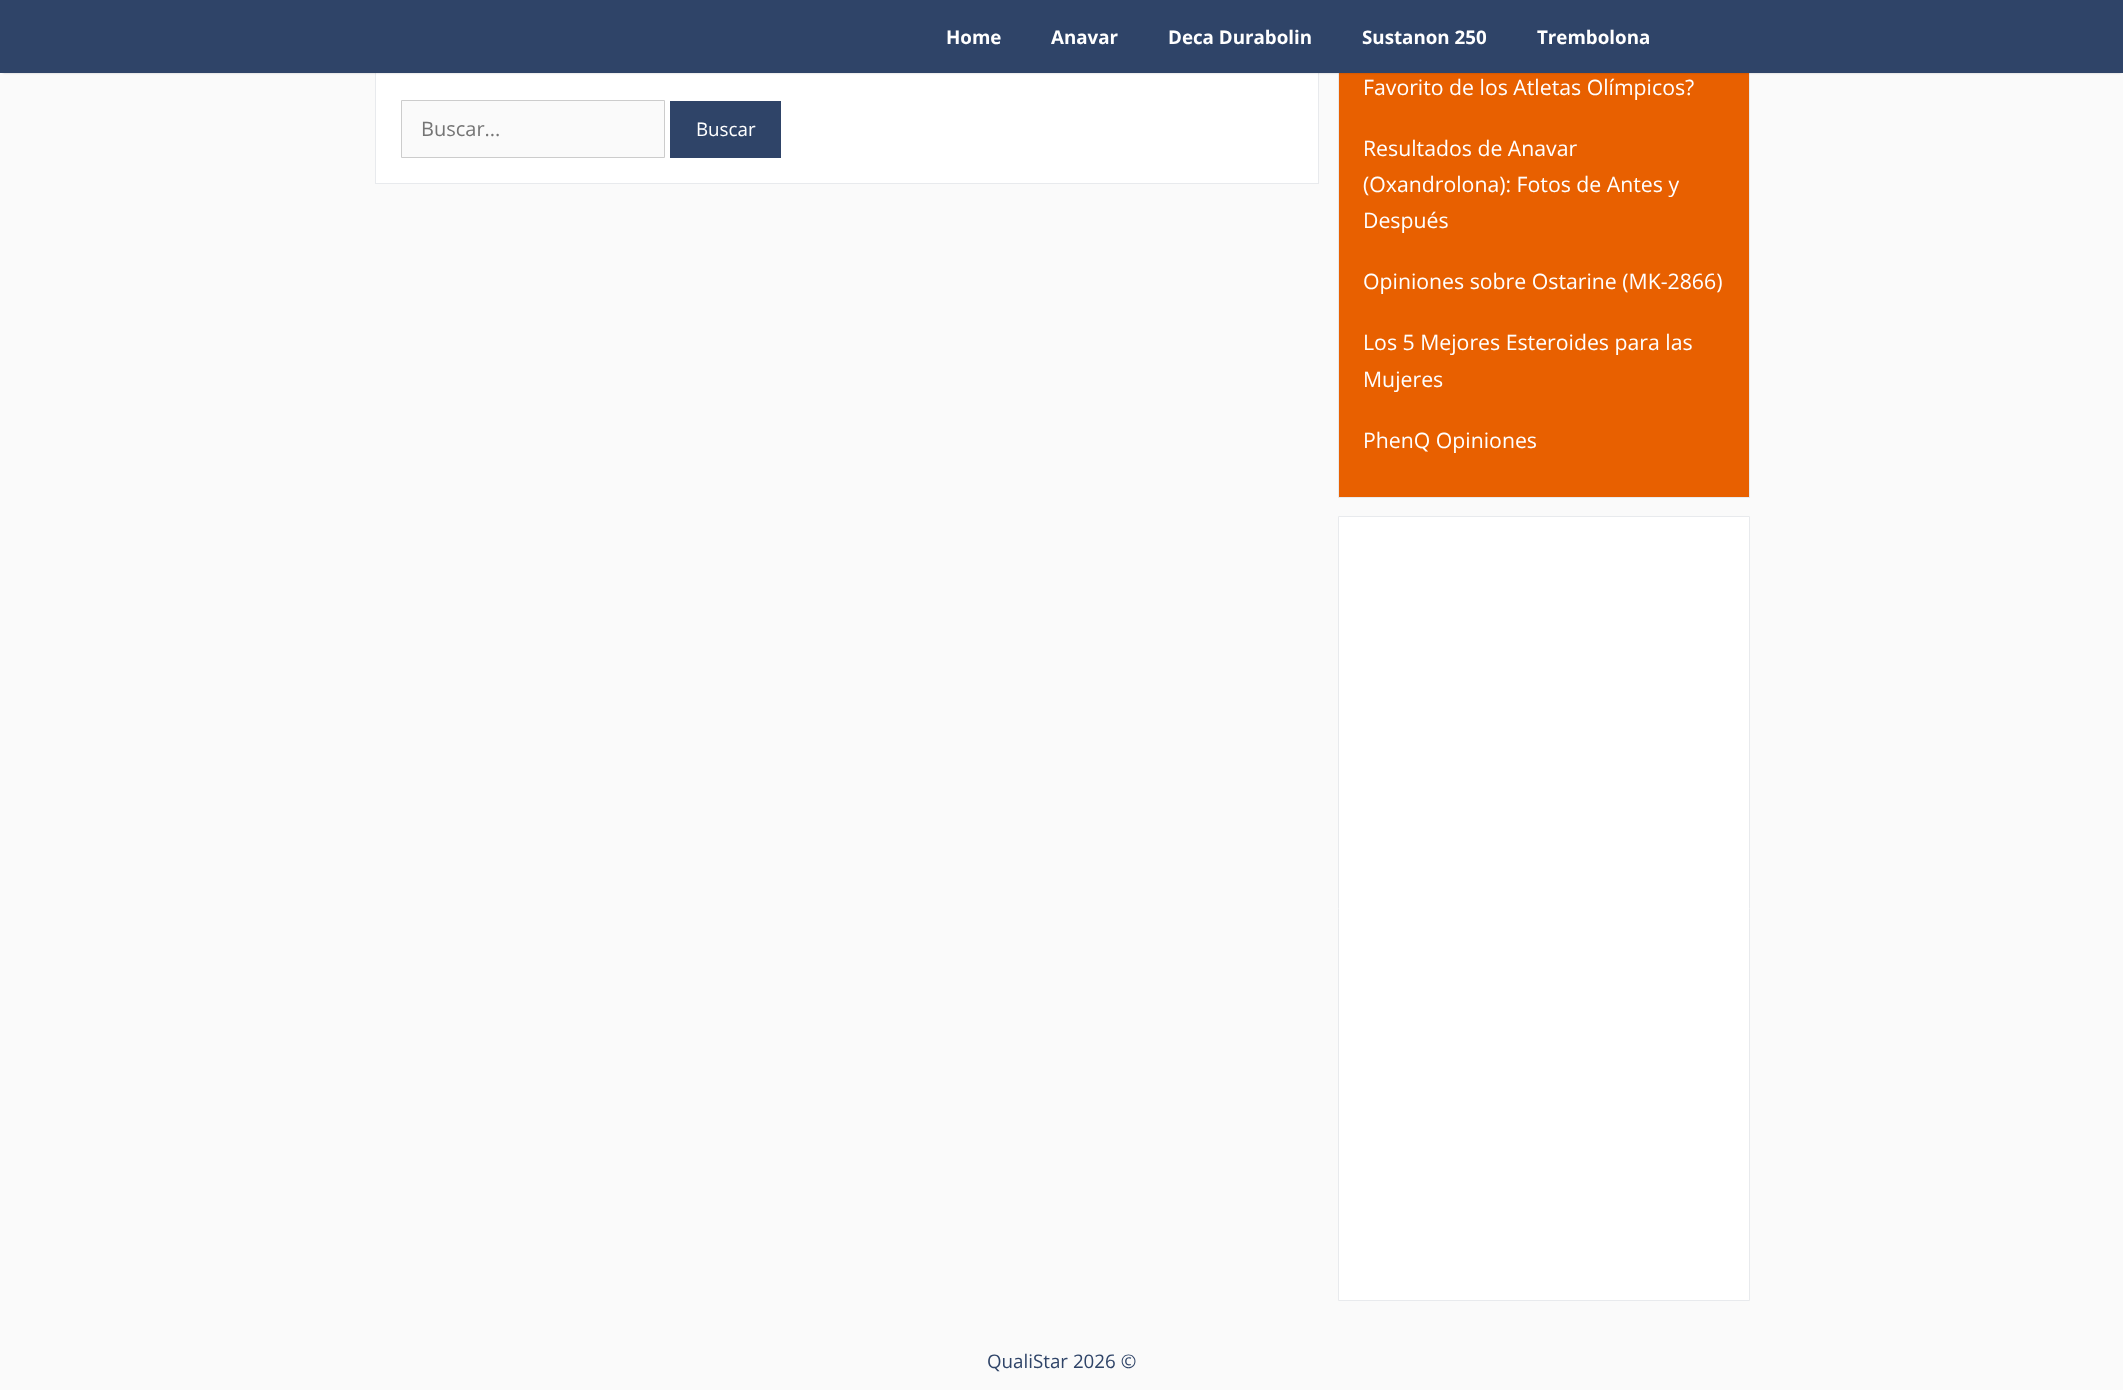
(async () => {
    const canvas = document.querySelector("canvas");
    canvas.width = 2123;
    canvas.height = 1390;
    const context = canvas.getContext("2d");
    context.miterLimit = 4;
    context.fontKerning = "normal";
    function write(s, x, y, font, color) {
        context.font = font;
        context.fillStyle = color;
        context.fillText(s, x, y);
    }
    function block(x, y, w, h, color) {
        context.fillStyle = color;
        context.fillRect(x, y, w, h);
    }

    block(0, 0, 2123, 1390, "rgb(250, 250, 250)");
    block(376, 73, 942, 110, "rgb(255, 255, 255)");
    context.strokeStyle = "rgb(232, 234, 237)";
    context.strokeRect(375.5, -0.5, 943, 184);
    block(1339, 73, 410, 424, "rgb(232, 96, 0)");
    context.strokeRect(1338.5, -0.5, 411, 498);
    context.fillStyle = "rgba(0, 0, 0, 0.2)";
    context.filter = "blur(1px)";
    context.beginPath();
    context.rect(3, 5, 2118, 68);
    context.fill();
    context.filter = "none";
    block(0, 0, 2123, 73, "rgb(47, 68, 104)");
    write("Home", 946, 44, "bold 18.75px Open Sans", "rgb(255, 255, 255)");
    write("Anavar", 1051, 44, "bold 18.75px Open Sans", "rgb(255, 255, 255)");
    write("Deca Durabolin", 1168, 44, "bold 18.75px Open Sans", "rgb(255, 255, 255)");
    write("Sustanon 250", 1362, 44, "bold 18.75px Open Sans", "rgb(255, 255, 255)");
    write("Trembolona", 1537, 44, "bold 18.75px Open Sans", "rgb(255, 255, 255)");
    context.fillStyle = "rgb(250, 250, 250)";
    context.beginPath();
    context.rect(401.5, 100.5, 263, 57);
    context.fill();
    context.strokeStyle = "rgb(204, 204, 204)";
    context.stroke();
    write("Buscar...", 421, 136, "20px Open Sans", "rgb(117, 117, 117)");
    block(670, 101, 111, 57, "rgb(47, 68, 104)");
    write("Buscar", 696, 136, "18.75px Open Sans", "rgb(255, 255, 255)");
    write("Favorito de los Atletas Olímpicos?", 1363, 95, "21.25px Open Sans", "rgb(255, 255, 255)");
    write("Resultados de Anavar", 1363, 156, "21.25px Open Sans", "rgb(255, 255, 255)");
    write("(Oxandrolona): Fotos de Antes y", 1363, 192, "21.25px Open Sans", "rgb(255, 255, 255)");
    write("Después", 1363, 228, "21.25px Open Sans", "rgb(255, 255, 255)");
    write("Opiniones sobre Ostarine (MK-2866)", 1363, 289, "21.25px Open Sans", "rgb(255, 255, 255)");
    write("Los 5 Mejores Esteroides para las", 1363, 350, "21.25px Open Sans", "rgb(255, 255, 255)");
    write("Mujeres", 1363, 387, "21.25px Open Sans", "rgb(255, 255, 255)");
    write("PhenQ Opiniones", 1363, 448, "21.25px Open Sans", "rgb(255, 255, 255)");
    context.beginPath();
    context.rect(1338.5, 516.5, 411, 784);
    context.fill();
    context.strokeStyle = "rgb(232, 234, 237)";
    context.stroke();
    write("QualiStar 2026 ©", 987, 1368, "18.75px Open Sans", "rgb(47, 68, 104)");
})();
